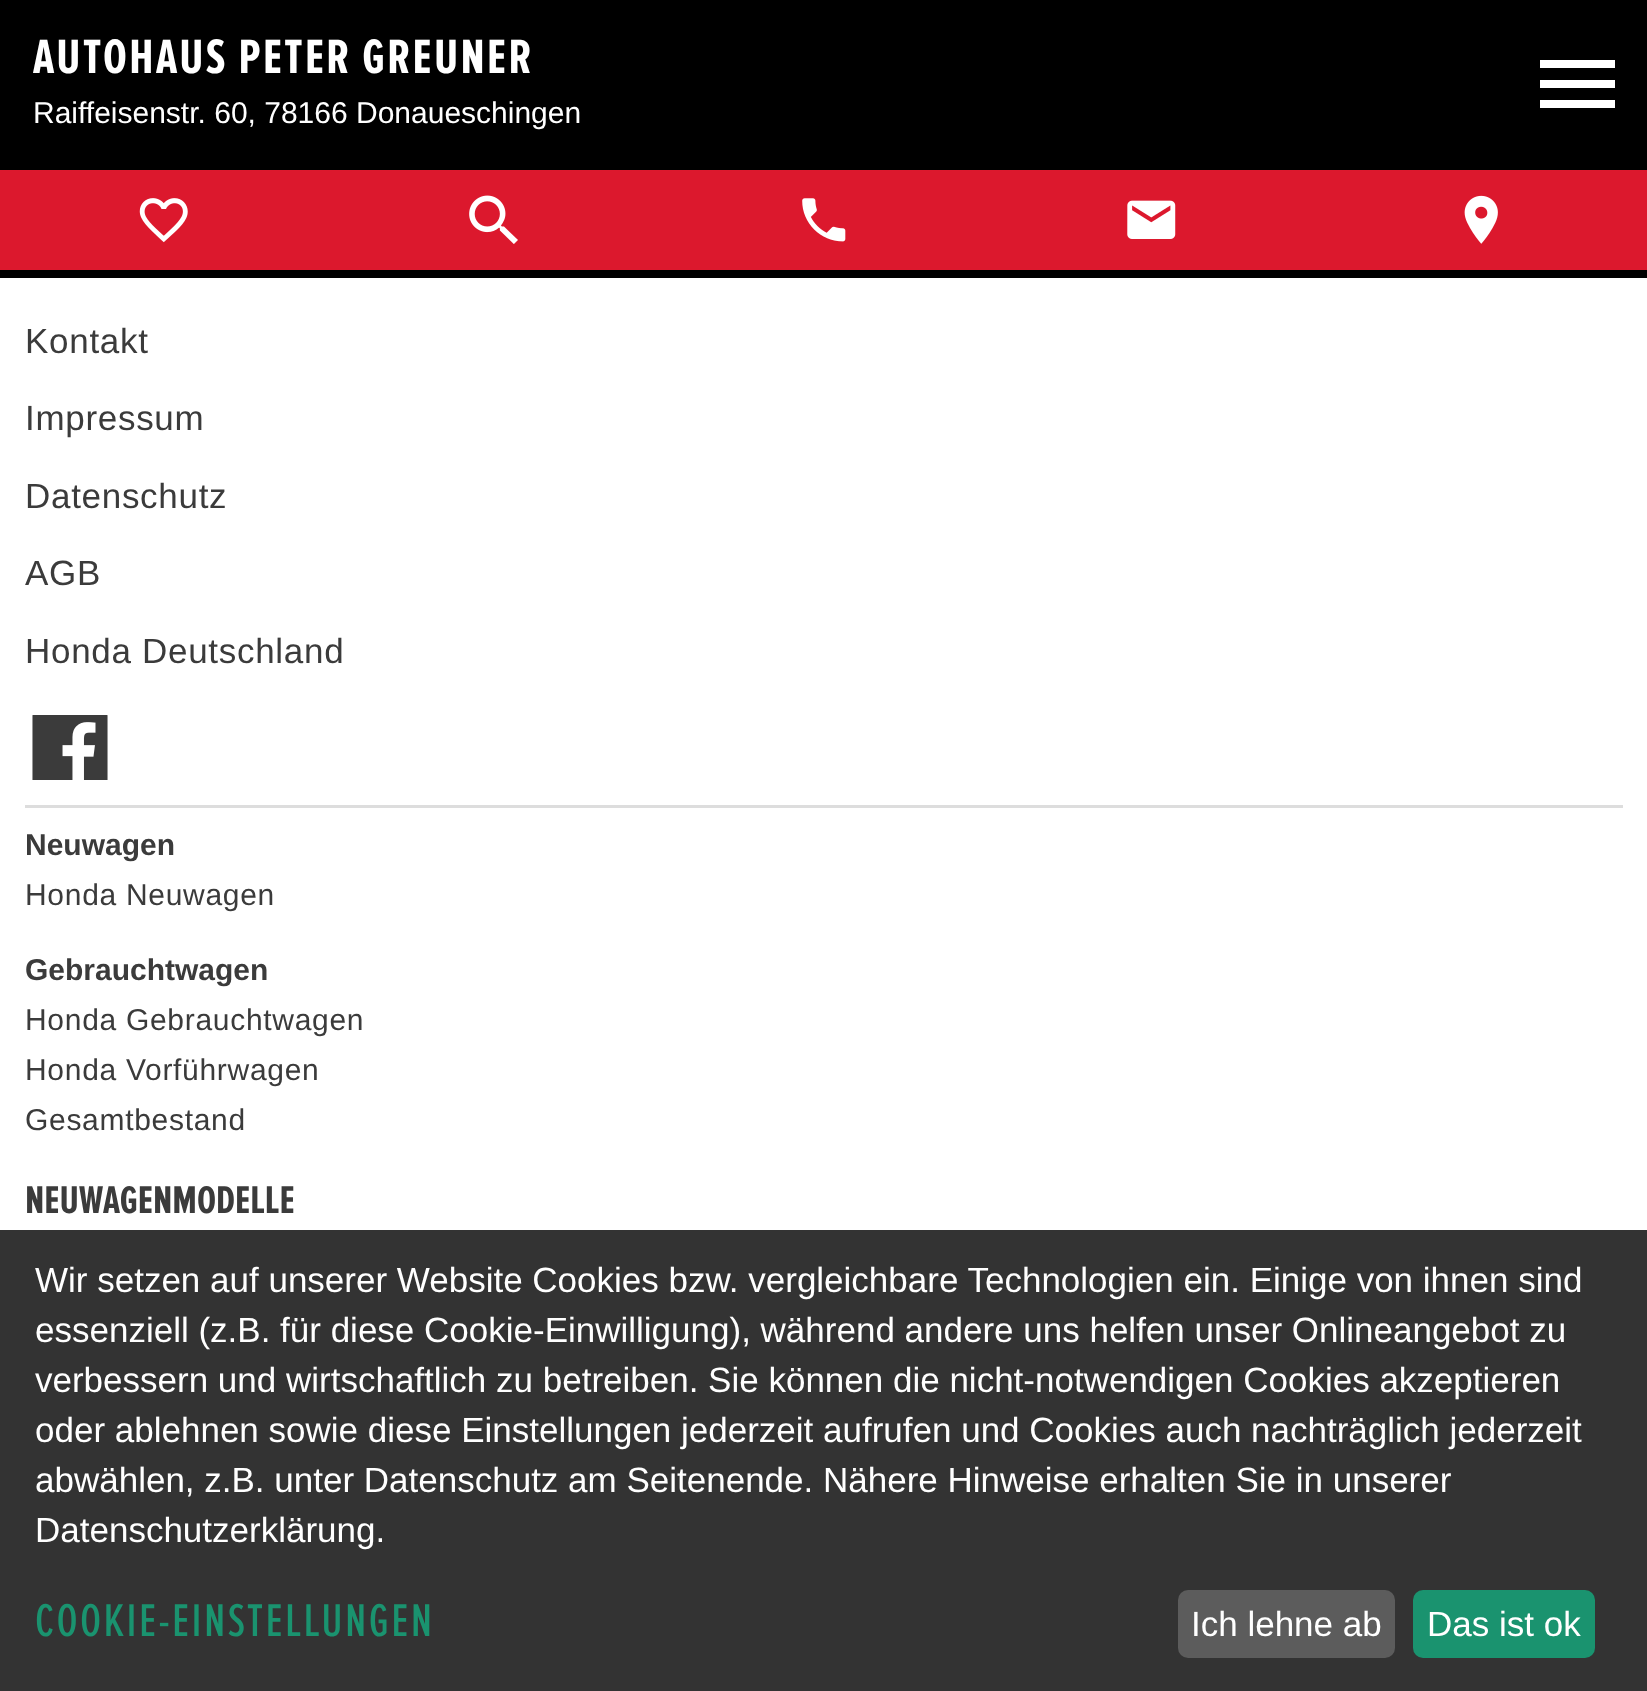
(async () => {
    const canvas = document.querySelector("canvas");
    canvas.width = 1647;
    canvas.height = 1691;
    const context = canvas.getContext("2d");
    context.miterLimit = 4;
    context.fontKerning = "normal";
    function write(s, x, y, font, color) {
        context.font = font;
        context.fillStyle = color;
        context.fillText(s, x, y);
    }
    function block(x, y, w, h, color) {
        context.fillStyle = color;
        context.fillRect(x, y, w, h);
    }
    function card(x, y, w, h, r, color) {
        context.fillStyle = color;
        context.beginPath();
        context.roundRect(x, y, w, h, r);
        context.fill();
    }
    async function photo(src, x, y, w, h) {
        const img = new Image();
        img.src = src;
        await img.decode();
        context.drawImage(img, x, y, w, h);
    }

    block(0, 0, 1647, 1691, "rgb(255, 255, 255)");
    block(0, 0, 1647, 170, "rgb(0, 0, 0)");
    context.letterSpacing = "2.4px";
    write("AUTOHAUS PETER GREUNER", 33, 73, "bold 50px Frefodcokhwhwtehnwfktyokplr", "rgb(255, 255, 255)");
    context.letterSpacing = "0px";
    write("Raiffeisenstr. 60, 78166 Donaueschingen", 33, 123, "30px Liberation Sans", "rgb(255, 255, 255)");
    block(1540, 80, 75, 8, "rgb(255, 255, 255)");
    block(1540, 60, 75, 8, "rgb(255, 255, 255)");
    block(1540, 100, 75, 8, "rgb(255, 255, 255)");
    block(0, 170, 1647, 100, "rgb(220, 24, 45)");
    await photo("media/1.png", 139, 198, 49, 45);
    await photo("media/2.png", 469, 195, 49, 49);
    await photo("media/3.png", 802, 198, 44, 44);
    await photo("media/4.png", 1127, 200, 49, 39);
    await photo("media/5.png", 1464, 195, 34, 49);
    block(0, 270, 1647, 8, "rgb(0, 0, 0)");
    context.letterSpacing = "0.7px";
    write("Kontakt", 25, 353, "35px Liberation Sans", "rgb(59, 59, 59)");
    write("Impressum", 25, 430, "35px Liberation Sans", "rgb(59, 59, 59)");
    write("Datenschutz", 25, 508, "35px Liberation Sans", "rgb(59, 59, 59)");
    write("AGB", 25, 585, "35px Liberation Sans", "rgb(59, 59, 59)");
    write("Honda Deutschland", 25, 663, "35px Liberation Sans", "rgb(59, 59, 59)");
    await photo("media/6.png", 32, 715, 76, 65);
    block(25, 805, 1598, 3, "rgb(221, 221, 221)");
    context.letterSpacing = "0px";
    write("Neuwagen", 25, 855, "bold 30px Liberation Sans", "rgb(59, 59, 59)");
    context.letterSpacing = "0.7px";
    write("Honda Neuwagen", 25, 905, "30px Liberation Sans", "rgb(59, 59, 59)");
    context.letterSpacing = "0px";
    write("Gebrauchtwagen", 25, 980, "bold 30px Liberation Sans", "rgb(59, 59, 59)");
    context.letterSpacing = "0.7px";
    write("Honda Gebrauchtwagen", 25, 1030, "30px Liberation Sans", "rgb(59, 59, 59)");
    write("Honda Vorführwagen", 25, 1080, "30px Liberation Sans", "rgb(59, 59, 59)");
    write("Gesamtbestand", 25, 1130, "30px Liberation Sans", "rgb(59, 59, 59)");
    context.letterSpacing = "0px";
    write("NEUWAGENMODELLE", 25, 1213, "bold 40px Frefodcokhwhwtehnwfktyokplr", "rgb(59, 59, 59)");
    block(0, 1230, 1647, 461, "rgb(51, 51, 51)");
    write("Wir setzen auf unserer Website Cookies bzw. vergleichbare Technologien ein. Einige von ihnen sind", 35, 1292, "35px Liberation Sans", "rgb(255, 255, 255)");
    write("essenziell (z.B. für diese Cookie-Einwilligung), während andere uns helfen unser Onlineangebot zu", 35, 1342, "35px Liberation Sans", "rgb(255, 255, 255)");
    write("verbessern und wirtschaftlich zu betreiben. Sie können die nicht-notwendigen Cookies akzeptieren", 35, 1392, "35px Liberation Sans", "rgb(255, 255, 255)");
    write("oder ablehnen sowie diese Einstellungen jederzeit aufrufen und Cookies auch nachträglich jederzeit", 35, 1442, "35px Liberation Sans", "rgb(255, 255, 255)");
    write("abwählen, z.B. unter Datenschutz am Seitenende. Nähere Hinweise erhalten Sie in unserer", 35, 1492, "35px Liberation Sans", "rgb(255, 255, 255)");
    write("Datenschutzerklärung.", 35, 1542, "35px Liberation Sans", "rgb(255, 255, 255)");
    context.letterSpacing = "2.4px";
    write("COOKIE-EINSTELLUNGEN", 35, 1636, "500 47.5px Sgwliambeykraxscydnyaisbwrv", "rgb(26, 147, 111)");
    card(1178, 1590, 217, 68, 10, "rgb(92, 92, 92)");
    context.letterSpacing = "0px";
    write("Ich lehne ab", 1191, 1636, "35px Liberation Sans", "rgb(255, 255, 255)");
    card(1413, 1590, 182, 68, 10, "rgb(26, 147, 111)");
    write("Das ist ok", 1427, 1636, "35px Liberation Sans", "rgb(255, 255, 255)");
})();
